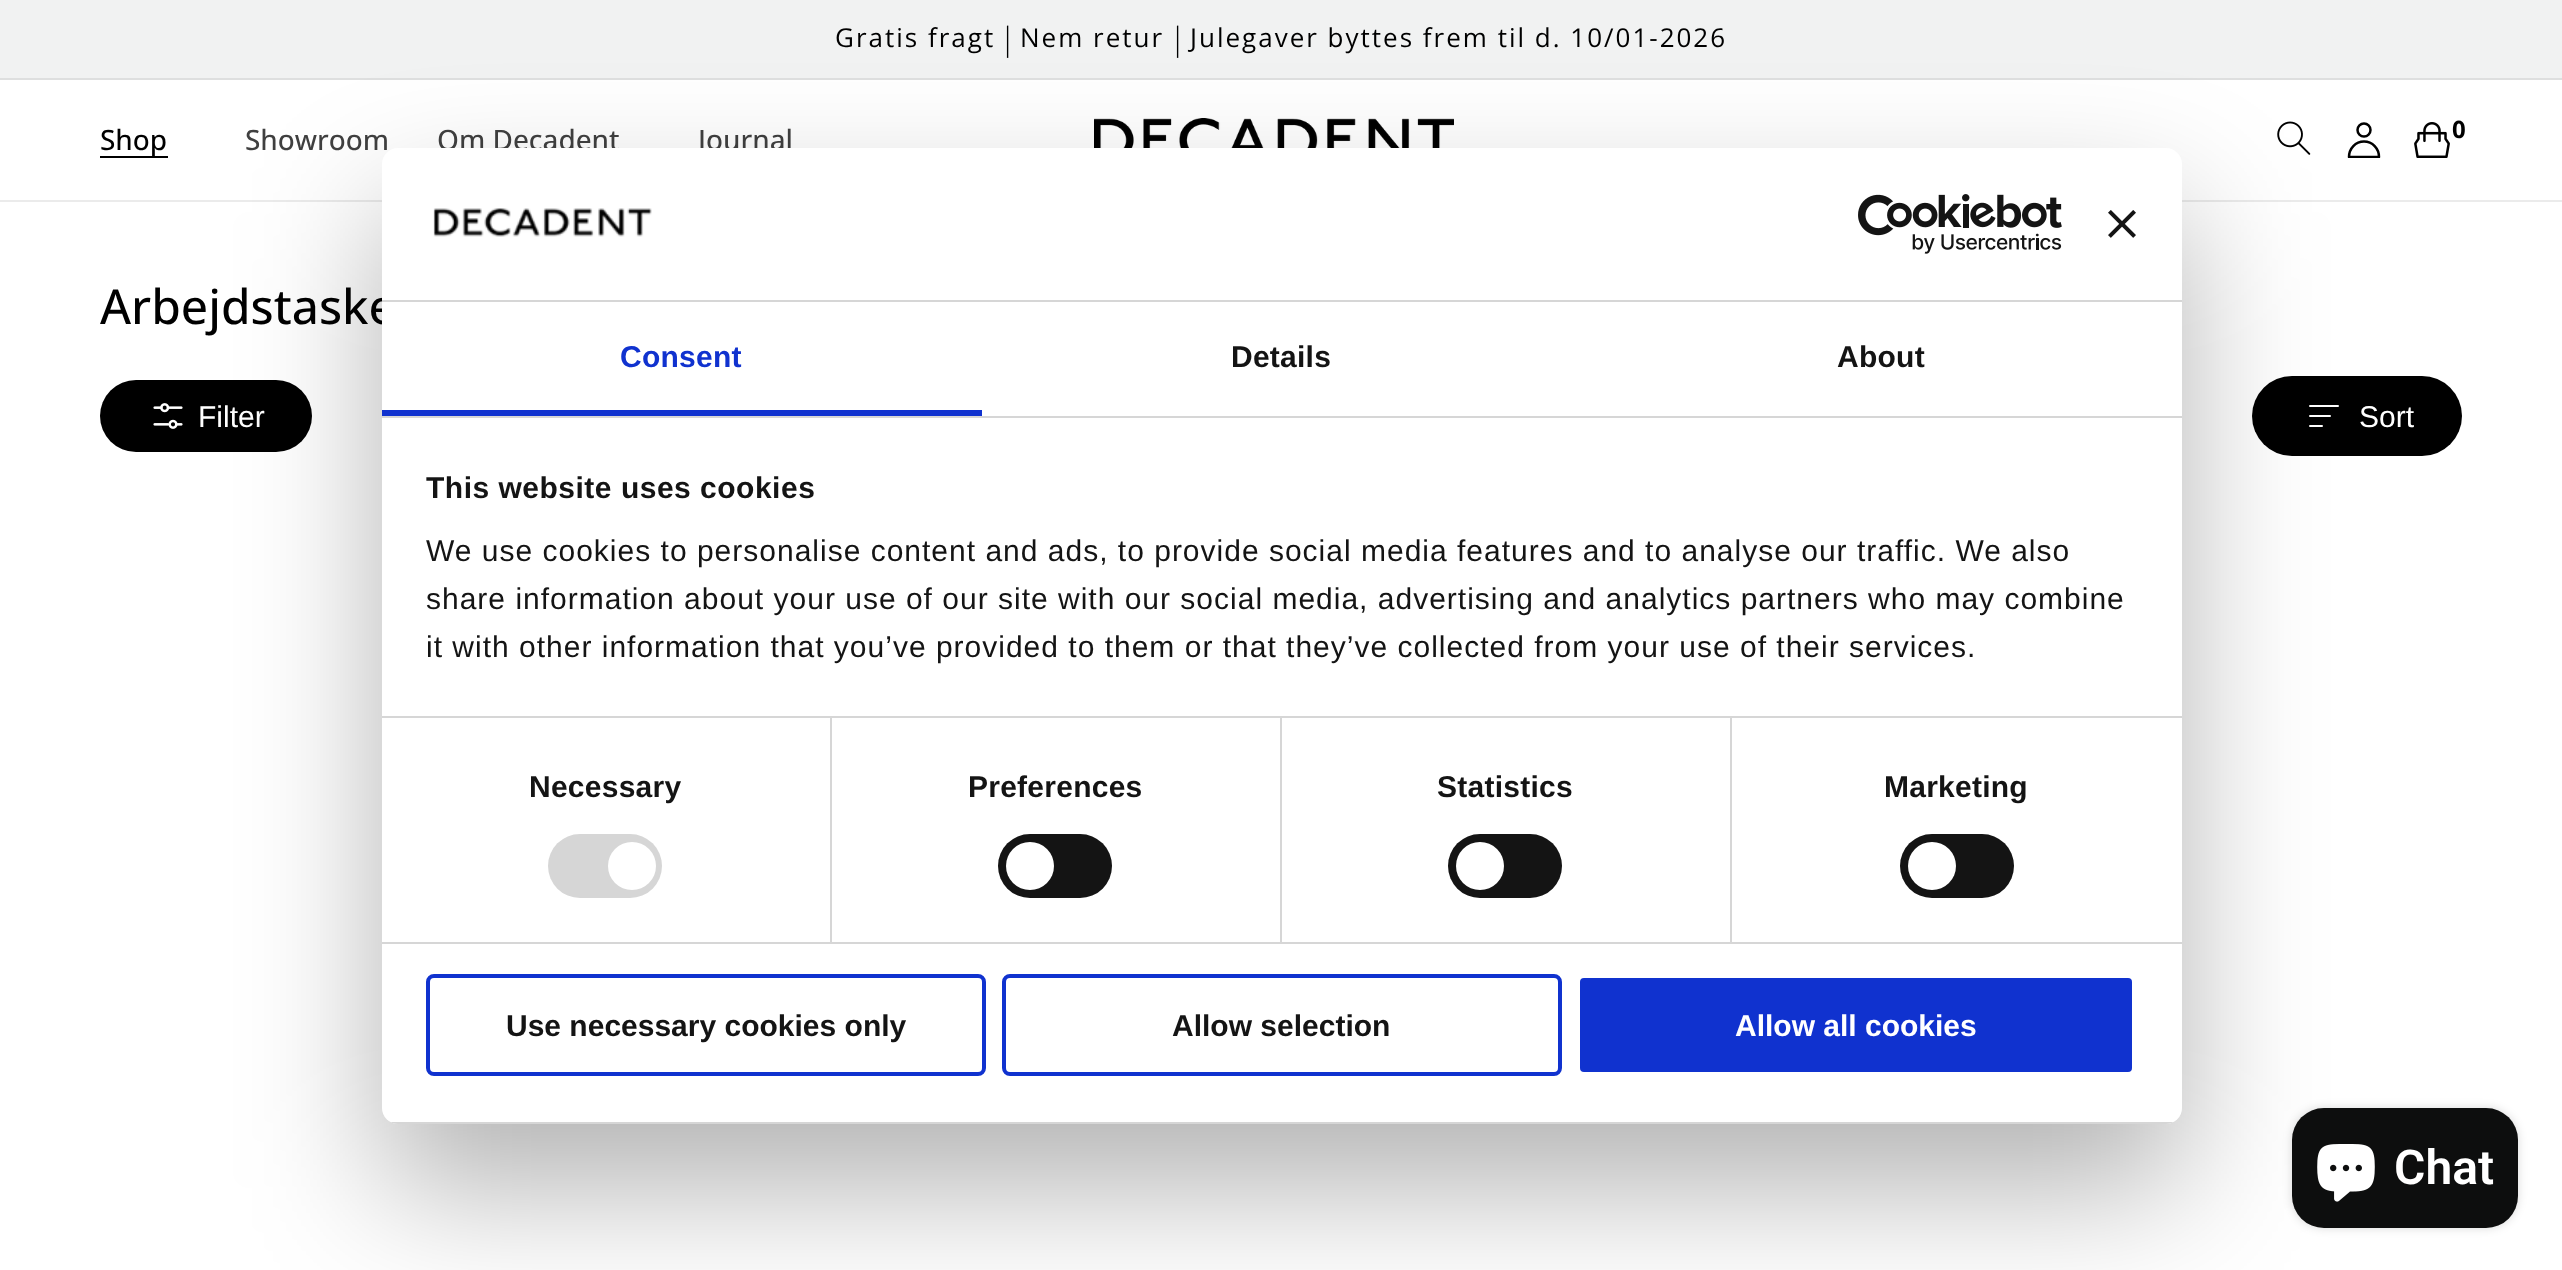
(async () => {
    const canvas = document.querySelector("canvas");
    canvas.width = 2562;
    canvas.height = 1270;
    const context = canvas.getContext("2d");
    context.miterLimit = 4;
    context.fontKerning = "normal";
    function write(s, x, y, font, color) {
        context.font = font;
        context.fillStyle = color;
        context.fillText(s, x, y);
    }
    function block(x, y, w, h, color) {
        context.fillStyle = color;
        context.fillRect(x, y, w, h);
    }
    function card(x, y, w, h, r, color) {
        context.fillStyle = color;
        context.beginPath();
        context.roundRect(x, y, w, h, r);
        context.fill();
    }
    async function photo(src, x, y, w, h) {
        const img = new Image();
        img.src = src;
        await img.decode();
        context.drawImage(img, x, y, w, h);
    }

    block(0, 0, 2562, 1270, "rgb(255, 255, 255)");
    block(0, 0, 2562, 78, "rgb(241, 242, 242)");
    block(0, 78, 2562, 2, "rgb(222, 223, 223)");
    context.letterSpacing = "2px";
    write("Gratis fragt", 835, 47, "26px Open Sans", "rgb(0, 0, 0)");
    context.letterSpacing = "0px";
    write("|", 999, 50, "300 32px Open Sans", "rgb(0, 0, 0)");
    context.letterSpacing = "2px";
    write("Nem retur", 1020, 47, "26px Open Sans", "rgb(0, 0, 0)");
    context.letterSpacing = "0px";
    write("|", 1169, 50, "300 32px Open Sans", "rgb(0, 0, 0)");
    context.letterSpacing = "2px";
    write("Julegaver byttes frem til d. 10/01-2026", 1190, 47, "26px Open Sans", "rgb(0, 0, 0)");
    block(0, 200, 2562, 2, "rgb(235, 235, 235)");
    block(100, 156, 68, 2, "rgb(0, 0, 0)");
    context.letterSpacing = "0px";
    write("Shop", 100, 150, "500 28px Open Sans", "rgb(0, 0, 0)");
    write("Showroom", 245, 150, "500 28px Open Sans", "rgb(64, 64, 64)");
    write("Om Decadent", 437, 150, "500 28px Open Sans", "rgb(64, 64, 64)");
    write("Journal", 698, 150, "500 28px Open Sans", "rgb(64, 64, 64)");
    await photo("media/1.png", 1094, 118, 360, 30);
    await photo("media/2.png", 2277, 121, 34, 34);
    context.save();
    context.beginPath();
    context.rect(2346, 122, 36, 36);
    context.clip();
    context.beginPath();
    context.moveTo(2349, 157);
    context.bezierCurveTo(2349, 148.5, 2355.5, 141.5, 2364, 141.5);
    context.bezierCurveTo(2372.5, 141.5, 2379, 148.5, 2379, 157);
    context.closePath();
    context.strokeStyle = "rgb(0, 0, 0)";
    context.lineWidth = 2.5;
    context.lineCap = "round";
    context.lineJoin = "round";
    context.stroke();
    context.restore();
    context.beginPath();
    context.arc(2364, 130, 6.5, 0, Math.PI * 2);
    context.strokeStyle = "rgb(0, 0, 0)";
    context.lineWidth = 2.5;
    context.stroke();
    await photo("media/3.png", 2414, 122, 36, 36);
    write("0", 2452, 138, "bold 24px Open Sans", "rgb(0, 0, 0)");
    write("Arbejdstaske", 100, 324, "500 48px Open Sans", "rgb(0, 0, 0)");
    card(100, 380, 212, 72, 36, "rgb(0, 0, 0)");
    await photo("media/4.png", 153, 403, 30, 26);
    write("Filter", 198, 427, "30px Liberation Sans", "rgb(255, 255, 255)");
    card(2252, 376, 210, 80, 40, "rgb(0, 0, 0)");
    context.beginPath();
    context.moveTo(2310, 406);
    context.lineTo(2338, 406);
    context.moveTo(2310, 416);
    context.lineTo(2330, 416);
    context.moveTo(2310, 426);
    context.lineTo(2322, 426);
    context.strokeStyle = "rgb(255, 255, 255)";
    context.lineWidth = 2;
    context.lineCap = "round";
    context.stroke();
    write("Sort", 2359, 427, "30px Liberation Sans", "rgb(255, 255, 255)");
    context.fillStyle = "rgba(0, 0, 0, 0.3)";
    context.filter = "blur(68px)";
    context.beginPath();
    context.roundRect(382, 212, 1800, 976, 16);
    context.fill();
    context.filter = "none";
    card(382, 148, 1800, 976, 16, "rgb(255, 255, 255)");
    block(382, 300, 1800, 2, "rgb(214, 214, 214)");
    await photo("media/5.png", 433, 208, 219, 29);
    await photo("media/6.png", 1858, 194, 204, 60);
    await photo("media/7.png", 2108, 210, 28, 28);
    block(382, 416, 1800, 2, "rgb(214, 214, 214)");
    block(382, 410, 600, 6, "rgb(16, 50, 207)");
    context.letterSpacing = "0.25px";
    write("Consent", 620, 367, "bold 30px Liberation Sans", "rgb(16, 50, 207)");
    write("Details", 1231, 367, "bold 30px Liberation Sans", "rgb(20, 20, 20)");
    write("About", 1837, 367, "bold 30px Liberation Sans", "rgb(20, 20, 20)");
    block(382, 716, 1800, 2, "rgb(214, 214, 214)");
    context.letterSpacing = "0.5px";
    write("This website uses cookies", 426, 498, "bold 30px Liberation Sans", "rgb(20, 20, 20)");
    context.letterSpacing = "1px";
    write("We use cookies to personalise content and ads, to provide social media features and to analyse our traffic. We also", 426, 561, "30px Liberation Sans", "rgb(20, 20, 20)");
    write("share information about your use of our site with our social media, advertising and analytics partners who may combine", 426, 609, "30px Liberation Sans", "rgb(20, 20, 20)");
    write("it with other information that you’ve provided to them or that they’ve collected from your use of their services.", 426, 657, "30px Liberation Sans", "rgb(20, 20, 20)");
    block(382, 942, 1800, 2, "rgb(214, 214, 214)");
    block(830, 718, 2, 224, "rgb(214, 214, 214)");
    context.letterSpacing = "0.25px";
    write("Necessary", 529, 797, "bold 30px Liberation Sans", "rgb(20, 20, 20)");
    card(548, 834, 114, 64, 32, "rgb(214, 214, 214)");
    context.fillStyle = "rgb(255, 255, 255)";
    context.beginPath();
    context.arc(632, 866, 24, 0, Math.PI * 2);
    context.fill();
    block(1280, 718, 2, 224, "rgb(214, 214, 214)");
    write("Preferences", 968, 797, "bold 30px Liberation Sans", "rgb(20, 20, 20)");
    card(998, 834, 114, 64, 32, "rgb(20, 20, 20)");
    context.fillStyle = "rgb(255, 255, 255)";
    context.beginPath();
    context.arc(1030, 866, 24, 0, Math.PI * 2);
    context.fill();
    block(1730, 718, 2, 224, "rgb(214, 214, 214)");
    write("Statistics", 1437, 797, "bold 30px Liberation Sans", "rgb(20, 20, 20)");
    card(1448, 834, 114, 64, 32, "rgb(20, 20, 20)");
    context.fillStyle = "rgb(255, 255, 255)";
    context.beginPath();
    context.arc(1480, 866, 24, 0, Math.PI * 2);
    context.fill();
    write("Marketing", 1884, 797, "bold 30px Liberation Sans", "rgb(20, 20, 20)");
    card(1900, 834, 114, 64, 32, "rgb(20, 20, 20)");
    context.fillStyle = "rgb(255, 255, 255)";
    context.beginPath();
    context.arc(1932, 866, 24, 0, Math.PI * 2);
    context.fill();
    context.save();
    context.beginPath();
    context.roundRect(382, 148, 1800, 976, 16);
    context.clip();
    block(382, 1122, 1800, 2, "rgb(214, 214, 214)");
    context.restore();
    context.beginPath();
    context.roundRect(428, 976, 556, 98, 6);
    context.strokeStyle = "rgb(16, 50, 207)";
    context.lineWidth = 4;
    context.stroke();
    context.letterSpacing = "0px";
    write("Use necessary cookies only", 506, 1036, "bold 30px Liberation Sans", "rgb(20, 20, 20)");
    context.beginPath();
    context.roundRect(1004, 976, 556, 98, 6);
    context.stroke();
    write("Allow selection", 1172, 1036, "bold 30px Liberation Sans", "rgb(20, 20, 20)");
    context.fillStyle = "rgb(16, 50, 207)";
    context.beginPath();
    context.roundRect(1578, 976, 556, 98, 6);
    context.fill();
    context.strokeStyle = "rgb(255, 255, 255)";
    context.stroke();
    write("Allow all cookies", 1735, 1036, "bold 30px Liberation Sans", "rgb(255, 255, 255)");
    context.fillStyle = "rgba(0, 0, 0, 0.15)";
    context.filter = "blur(5px)";
    context.beginPath();
    context.roundRect(2292, 1108, 226, 120, 32);
    context.fill();
    context.filter = "none";
    card(2292, 1108, 226, 120, 32, "rgb(13, 14, 14)");
    await photo("media/8.png", 2317, 1144, 58, 58);
    write("Chat", 2394, 1184, "600 48px Roboto", "rgb(255, 255, 255)");
})();
